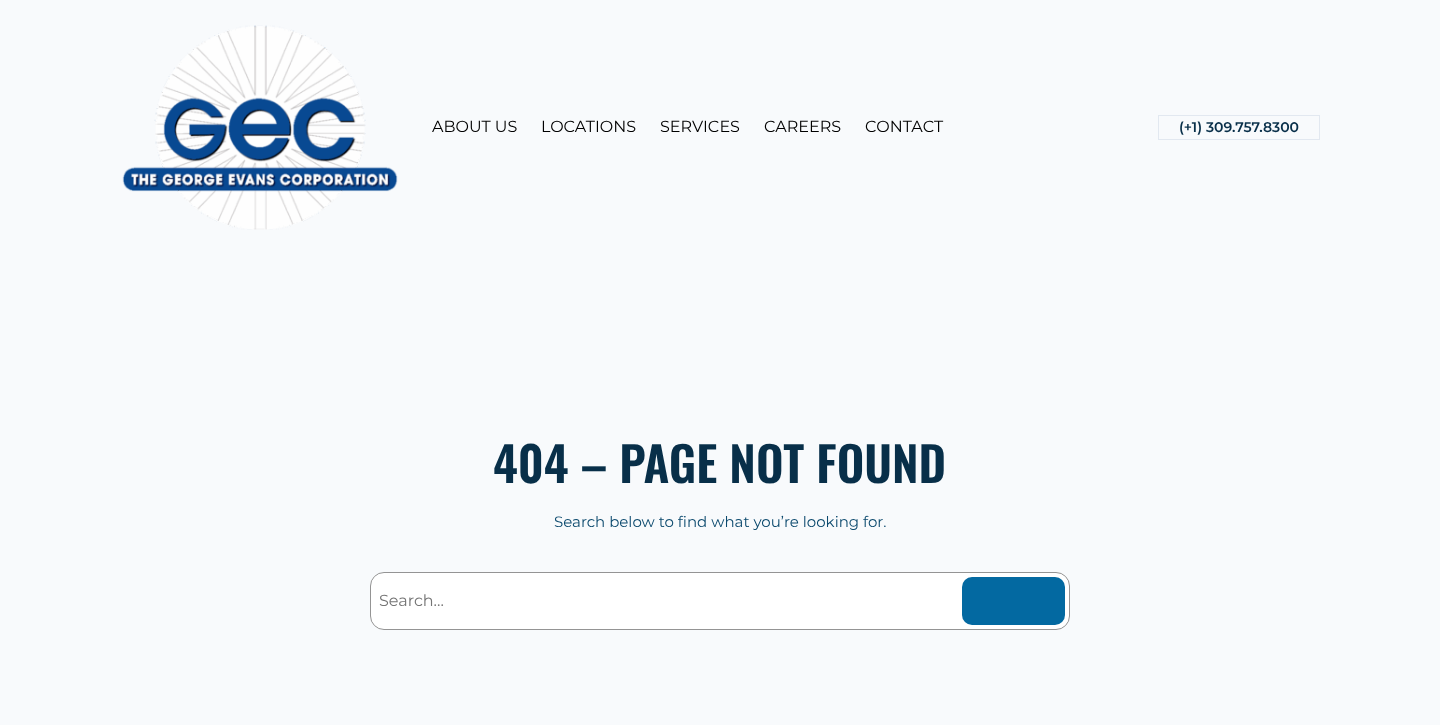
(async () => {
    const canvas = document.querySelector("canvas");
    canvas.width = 1440;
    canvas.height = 725;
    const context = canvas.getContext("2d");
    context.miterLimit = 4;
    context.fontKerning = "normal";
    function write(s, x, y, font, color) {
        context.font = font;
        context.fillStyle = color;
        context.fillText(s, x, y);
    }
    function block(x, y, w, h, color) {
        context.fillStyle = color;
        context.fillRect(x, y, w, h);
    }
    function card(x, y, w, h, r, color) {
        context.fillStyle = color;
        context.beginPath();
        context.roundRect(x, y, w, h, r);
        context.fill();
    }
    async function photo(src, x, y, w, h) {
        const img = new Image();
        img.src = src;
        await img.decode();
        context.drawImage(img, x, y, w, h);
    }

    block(0, 0, 1440, 725, "rgb(248, 250, 252)");
    await photo("media/1.png", 122, 25, 276, 205);
    write("ABOUT US", 432, 132, "16px Montserrat", "rgb(0, 0, 0)");
    write("LOCATIONS", 541, 132, "16px Montserrat", "rgb(0, 0, 0)");
    write("SERVICES", 660, 132, "16px Montserrat", "rgb(0, 0, 0)");
    write("CAREERS", 764, 132, "16px Montserrat", "rgb(0, 0, 0)");
    write("CONTACT", 865, 132, "16px Montserrat", "rgb(0, 0, 0)");
    context.strokeStyle = "rgb(226, 232, 240)";
    context.strokeRect(1158.5, 115.5, 161, 24);
    write("(+1) 309.757.8300", 1179, 132, "600 14px Montserrat", "rgb(8, 47, 73)");
    write("404 – PAGE NOT FOUND", 493, 483, "600 48px Oswald", "rgb(8, 47, 73)");
    write("Search below to find what you’re looking for.", 554, 527, "15px Montserrat", "rgb(12, 74, 110)");
    context.fillStyle = "rgb(255, 255, 255)";
    context.beginPath();
    context.roundRect(370.5, 572.5, 699, 57, 13.5);
    context.fill();
    context.strokeStyle = "rgb(148, 148, 148)";
    context.stroke();
    write("Search...", 379, 606, "16px Montserrat", "rgb(117, 117, 117)");
    card(962, 577, 103, 48, 10, "rgb(3, 105, 161)");
})();
